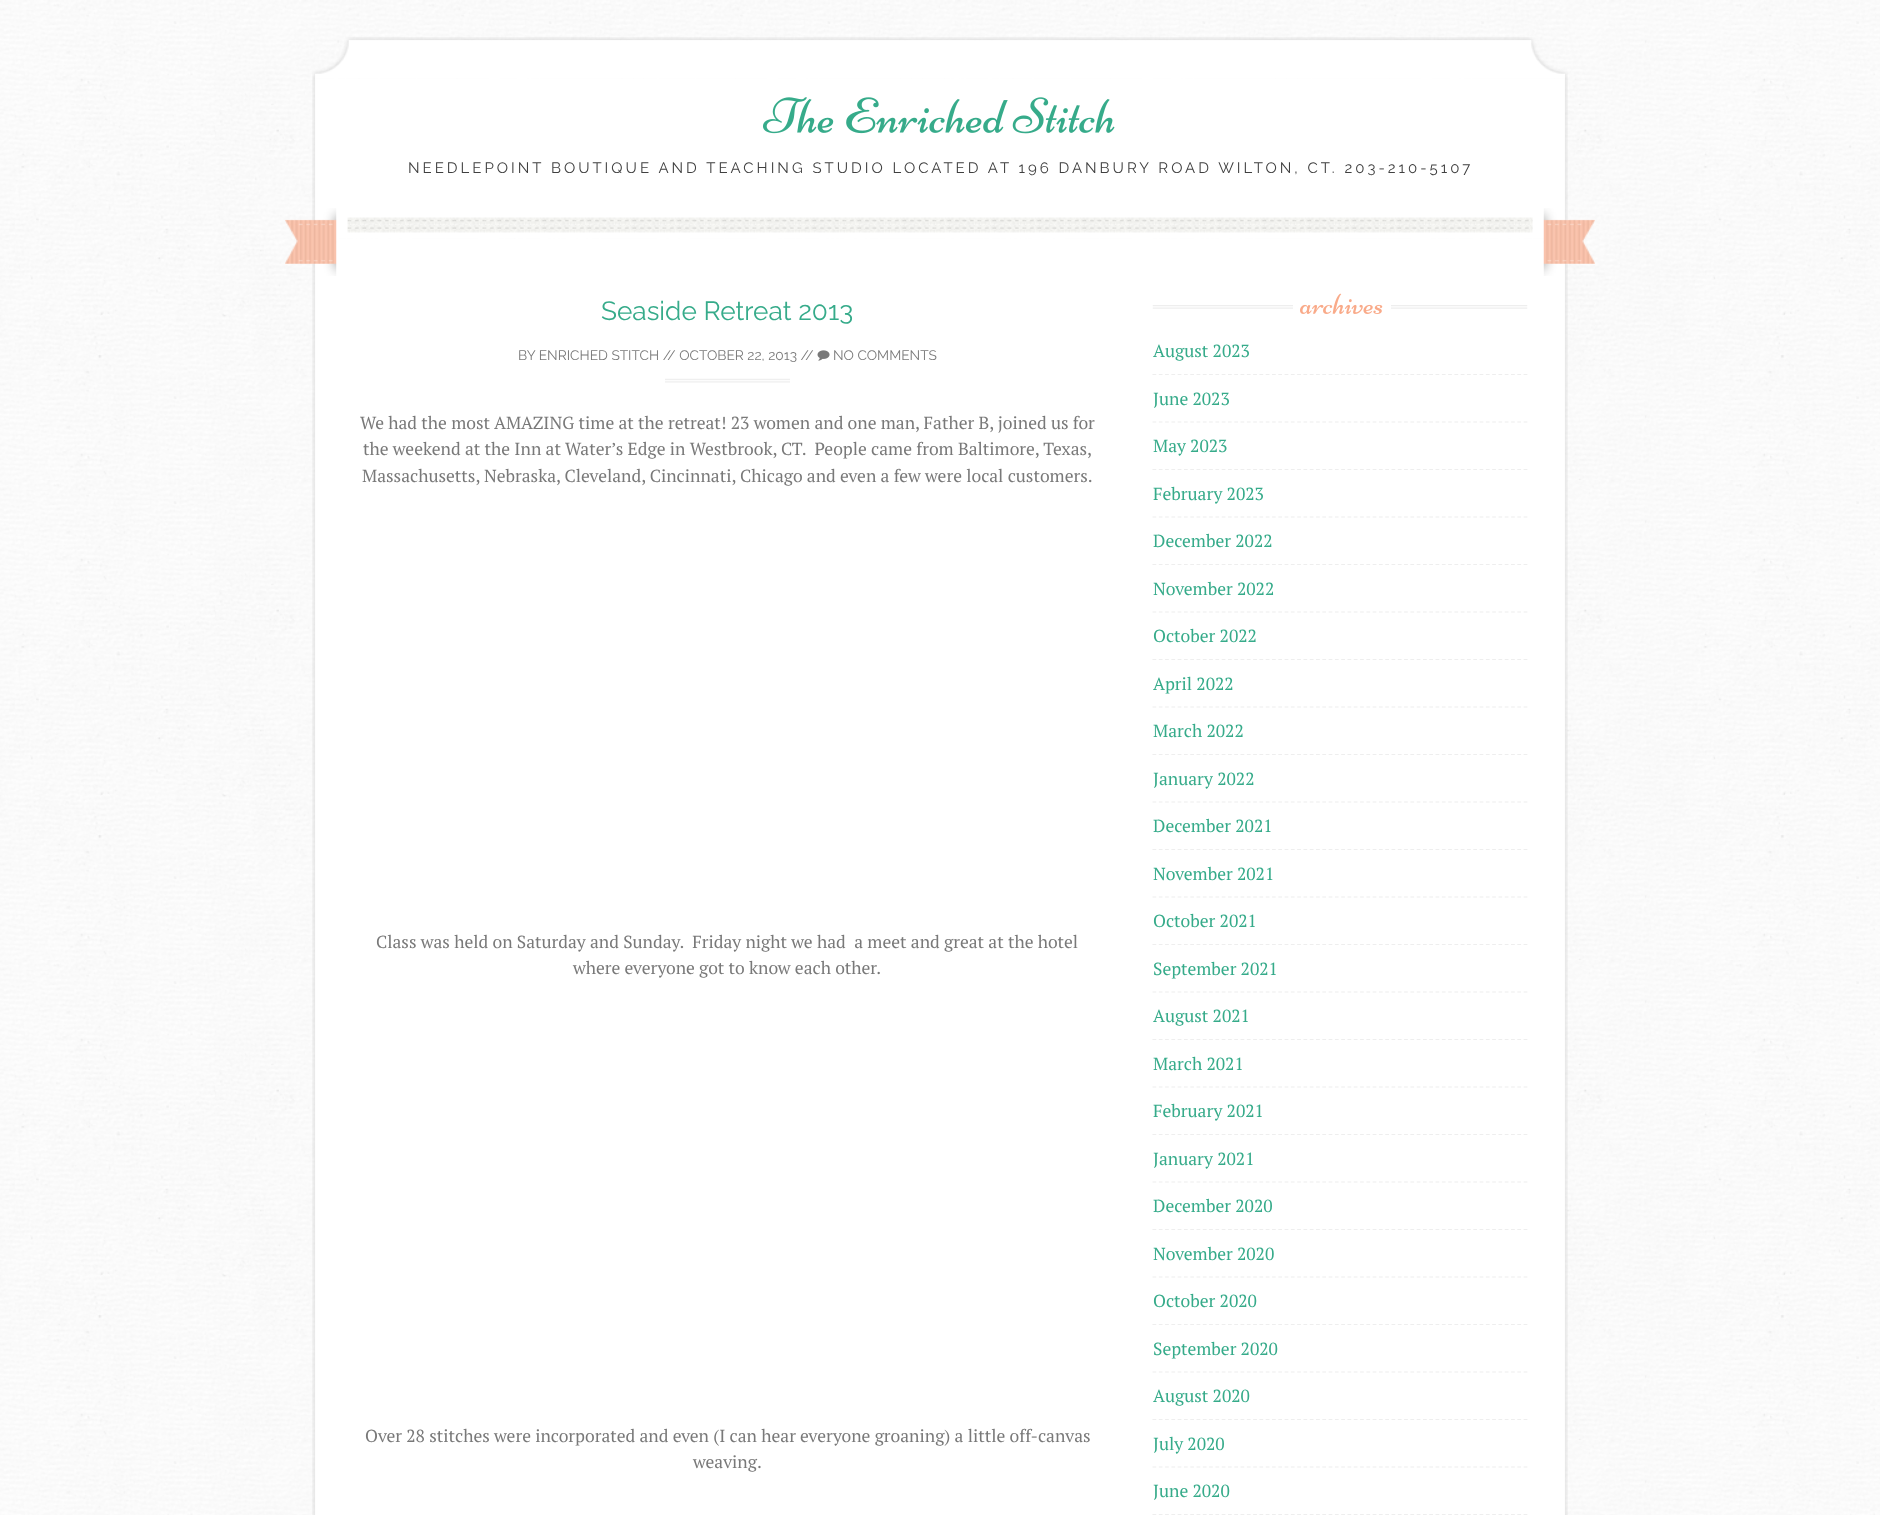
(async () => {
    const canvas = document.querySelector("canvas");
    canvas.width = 1880;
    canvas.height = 1515;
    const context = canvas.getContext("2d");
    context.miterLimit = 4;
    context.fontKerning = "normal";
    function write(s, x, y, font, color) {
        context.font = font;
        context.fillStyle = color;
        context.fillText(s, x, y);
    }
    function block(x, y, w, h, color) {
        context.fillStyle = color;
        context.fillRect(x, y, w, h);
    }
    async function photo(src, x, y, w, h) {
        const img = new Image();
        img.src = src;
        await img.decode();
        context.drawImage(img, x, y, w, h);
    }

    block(0, 0, 1880, 1515, "rgb(255, 255, 255)");
    await photo("media/1.png", 0, 0, 1880, 1515);
    await photo("media/2.png", 312, 37, 1256, 42);
    await photo("media/9.png", 312, 238, 1256, 1277);
    await photo("media/3.png", 312, 78, 1256, 161);
    await photo("media/4.png", 763, 97, 352, 37);
    context.letterSpacing = "3px";
    write("NEEDLEPOINT BOUTIQUE AND TEACHING STUDIO LOCATED AT 196 DANBURY ROAD WILTON, CT. 203-210-5107", 408, 173, "15px Raleway", "rgb(64, 64, 64)");
    await photo("media/5.png", 285, 208, 52, 68);
    await photo("media/6.png", 347, 217, 1186, 8);
    await photo("media/7.png", 347, 225, 1186, 8);
    await photo("media/8.png", 1543, 208, 52, 68);
    context.letterSpacing = "0px";
    write("Seaside Retreat 2013", 601, 320, "26.25px Raleway", "rgb(54, 171, 138)");
    await photo("media/10.png", 665, 378, 125, 5);
    write("BY ENRICHED STITCH // OCTOBER 22, 2013 //", 518, 360, "13.75px Raleway", "rgb(121, 121, 121)");
    await photo("media/11.png", 817, 350, 13, 11);
    write("NO COMMENTS", 833, 360, "13.75px Raleway", "rgb(121, 121, 121)");
    write("We had the most AMAZING time at the retreat! 23 women and one man, Father B, joined us for", 360, 429, "17.5px PT Serif", "rgb(121, 121, 121)");
    write("the weekend at the Inn at Water’s Edge in Westbrook, CT.  People came from Baltimore, Texas,", 363, 455, "17.5px PT Serif", "rgb(121, 121, 121)");
    write("Massachusetts, Nebraska, Cleveland, Cincinnati, Chicago and even a few were local customers.", 362, 482, "17.5px PT Serif", "rgb(121, 121, 121)");
    write("Class was held on Saturday and Sunday.  Friday night we had  a meet and great at the hotel", 376, 948, "17.5px PT Serif", "rgb(121, 121, 121)");
    write("where everyone got to know each other.", 573, 974, "17.5px PT Serif", "rgb(121, 121, 121)");
    write("Over 28 stitches were incorporated and even (I can hear everyone groaning) a little off-canvas", 365, 1442, "17.5px PT Serif", "rgb(121, 121, 121)");
    write("weaving.", 693, 1468, "17.5px PT Serif", "rgb(121, 121, 121)");
    await photo("media/12.png", 1152, 305, 376, 4);
    block(1293, 305, 98, 4, "rgb(255, 255, 255)");
    await photo("media/13.png", 1300, 293, 83, 21);
    context.beginPath();
    context.moveTo(1152.5, 374.5);
    context.lineTo(1527.5, 374.5);
    context.strokeStyle = "rgb(238, 238, 238)";
    context.lineWidth = 1.2;
    context.setLineDash([3.75, 2.54]);
    context.stroke();
    write("August 2023", 1153, 357, "17.5px PT Serif", "rgb(54, 171, 138)");
    context.beginPath();
    context.moveTo(1152.5, 422);
    context.lineTo(1527.5, 422);
    context.stroke();
    write("June 2023", 1153, 405, "17.5px PT Serif", "rgb(54, 171, 138)");
    context.beginPath();
    context.moveTo(1152.5, 469.5);
    context.lineTo(1527.5, 469.5);
    context.stroke();
    write("May 2023", 1153, 452, "17.5px PT Serif", "rgb(54, 171, 138)");
    context.beginPath();
    context.moveTo(1152.5, 517);
    context.lineTo(1527.5, 517);
    context.stroke();
    write("February 2023", 1153, 500, "17.5px PT Serif", "rgb(54, 171, 138)");
    context.beginPath();
    context.moveTo(1152.5, 564.5);
    context.lineTo(1527.5, 564.5);
    context.stroke();
    write("December 2022", 1153, 547, "17.5px PT Serif", "rgb(54, 171, 138)");
    context.beginPath();
    context.moveTo(1152.5, 612);
    context.lineTo(1527.5, 612);
    context.stroke();
    write("November 2022", 1153, 595, "17.5px PT Serif", "rgb(54, 171, 138)");
    context.beginPath();
    context.moveTo(1152.5, 659.5);
    context.lineTo(1527.5, 659.5);
    context.stroke();
    write("October 2022", 1153, 642, "17.5px PT Serif", "rgb(54, 171, 138)");
    context.beginPath();
    context.moveTo(1152.5, 707);
    context.lineTo(1527.5, 707);
    context.stroke();
    write("April 2022", 1153, 690, "17.5px PT Serif", "rgb(54, 171, 138)");
    context.beginPath();
    context.moveTo(1152.5, 754.5);
    context.lineTo(1527.5, 754.5);
    context.stroke();
    write("March 2022", 1153, 737, "17.5px PT Serif", "rgb(54, 171, 138)");
    context.beginPath();
    context.moveTo(1152.5, 802);
    context.lineTo(1527.5, 802);
    context.stroke();
    write("January 2022", 1153, 785, "17.5px PT Serif", "rgb(54, 171, 138)");
    context.beginPath();
    context.moveTo(1152.5, 849.5);
    context.lineTo(1527.5, 849.5);
    context.stroke();
    write("December 2021", 1153, 832, "17.5px PT Serif", "rgb(54, 171, 138)");
    context.beginPath();
    context.moveTo(1152.5, 897);
    context.lineTo(1527.5, 897);
    context.stroke();
    write("November 2021", 1153, 880, "17.5px PT Serif", "rgb(54, 171, 138)");
    context.beginPath();
    context.moveTo(1152.5, 944.5);
    context.lineTo(1527.5, 944.5);
    context.stroke();
    write("October 2021", 1153, 927, "17.5px PT Serif", "rgb(54, 171, 138)");
    context.beginPath();
    context.moveTo(1152.5, 992);
    context.lineTo(1527.5, 992);
    context.stroke();
    write("September 2021", 1153, 975, "17.5px PT Serif", "rgb(54, 171, 138)");
    context.beginPath();
    context.moveTo(1152.5, 1039.5);
    context.lineTo(1527.5, 1039.5);
    context.stroke();
    write("August 2021", 1153, 1022, "17.5px PT Serif", "rgb(54, 171, 138)");
    context.beginPath();
    context.moveTo(1152.5, 1087);
    context.lineTo(1527.5, 1087);
    context.stroke();
    write("March 2021", 1153, 1070, "17.5px PT Serif", "rgb(54, 171, 138)");
    context.beginPath();
    context.moveTo(1152.5, 1134.5);
    context.lineTo(1527.5, 1134.5);
    context.stroke();
    write("February 2021", 1153, 1117, "17.5px PT Serif", "rgb(54, 171, 138)");
    context.beginPath();
    context.moveTo(1152.5, 1182);
    context.lineTo(1527.5, 1182);
    context.stroke();
    write("January 2021", 1153, 1165, "17.5px PT Serif", "rgb(54, 171, 138)");
    context.beginPath();
    context.moveTo(1152.5, 1229.5);
    context.lineTo(1527.5, 1229.5);
    context.stroke();
    write("December 2020", 1153, 1212, "17.5px PT Serif", "rgb(54, 171, 138)");
    context.beginPath();
    context.moveTo(1152.5, 1277);
    context.lineTo(1527.5, 1277);
    context.stroke();
    write("November 2020", 1153, 1260, "17.5px PT Serif", "rgb(54, 171, 138)");
    context.beginPath();
    context.moveTo(1152.5, 1324.5);
    context.lineTo(1527.5, 1324.5);
    context.stroke();
    write("October 2020", 1153, 1307, "17.5px PT Serif", "rgb(54, 171, 138)");
    context.beginPath();
    context.moveTo(1152.5, 1372);
    context.lineTo(1527.5, 1372);
    context.stroke();
    write("September 2020", 1153, 1355, "17.5px PT Serif", "rgb(54, 171, 138)");
    context.beginPath();
    context.moveTo(1152.5, 1419.5);
    context.lineTo(1527.5, 1419.5);
    context.stroke();
    write("August 2020", 1153, 1402, "17.5px PT Serif", "rgb(54, 171, 138)");
    context.beginPath();
    context.moveTo(1152.5, 1467);
    context.lineTo(1527.5, 1467);
    context.stroke();
    write("July 2020", 1153, 1450, "17.5px PT Serif", "rgb(54, 171, 138)");
    context.beginPath();
    context.moveTo(1152.5, 1514.5);
    context.lineTo(1527.5, 1514.5);
    context.stroke();
    write("June 2020", 1153, 1497, "17.5px PT Serif", "rgb(54, 171, 138)");
})();
